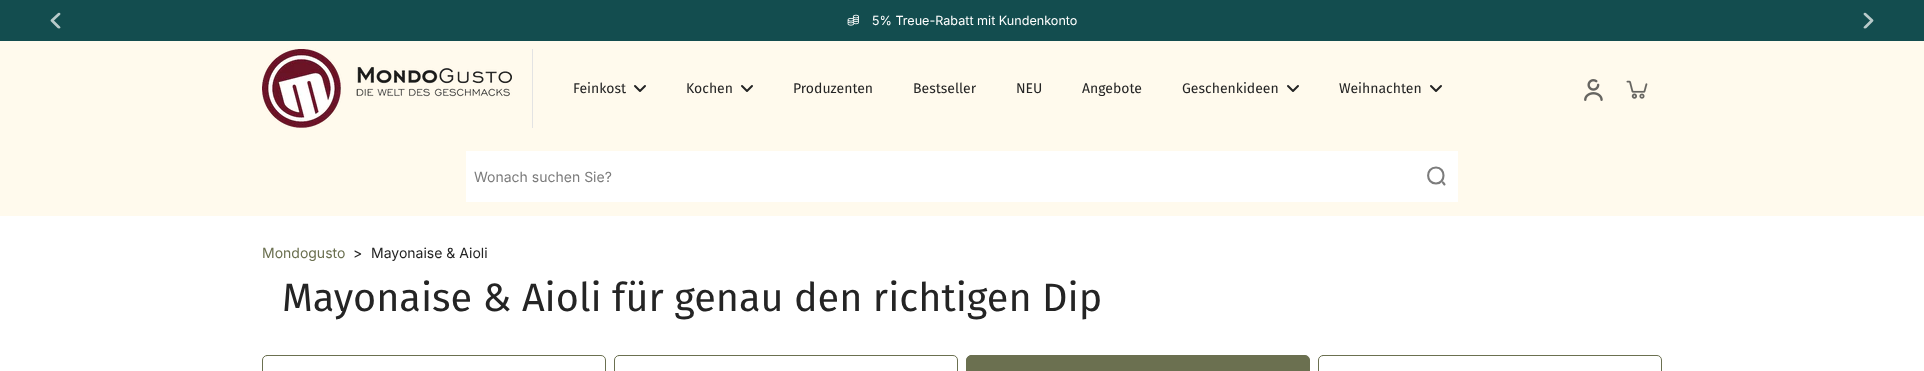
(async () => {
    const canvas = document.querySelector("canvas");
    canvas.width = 1924;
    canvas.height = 371;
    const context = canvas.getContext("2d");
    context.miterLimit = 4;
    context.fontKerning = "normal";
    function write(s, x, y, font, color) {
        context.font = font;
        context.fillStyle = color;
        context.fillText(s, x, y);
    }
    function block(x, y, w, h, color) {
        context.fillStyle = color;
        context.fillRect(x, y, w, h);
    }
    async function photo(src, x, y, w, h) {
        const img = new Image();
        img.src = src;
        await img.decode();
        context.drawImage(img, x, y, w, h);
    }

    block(0, 0, 1924, 371, "rgb(255, 255, 255)");
    block(0, 0, 1924, 41, "rgb(19, 77, 79)");
    context.save();
    context.beginPath();
    context.moveTo(62, 12.5);
    context.lineTo(62, 28.5);
    context.lineTo(49.5, 28.5);
    context.lineTo(49.5, 12.5);
    context.closePath();
    context.clip();
    context.beginPath();
    context.moveTo(59, 14);
    context.lineTo(52, 20.5);
    context.lineTo(59, 27.5);
    context.strokeStyle = "rgb(184, 202, 202)";
    context.lineWidth = 2.7;
    context.lineCap = "round";
    context.lineJoin = "round";
    context.stroke();
    context.restore();
    context.save();
    context.beginPath();
    context.moveTo(1862, 28.5);
    context.lineTo(1862, 12.5);
    context.lineTo(1874.5, 12.5);
    context.lineTo(1874.5, 28.5);
    context.closePath();
    context.clip();
    context.beginPath();
    context.moveTo(1865, 27.5);
    context.lineTo(1872, 20.5);
    context.lineTo(1865, 14);
    context.strokeStyle = "rgb(184, 202, 202)";
    context.lineWidth = 2.7;
    context.lineCap = "round";
    context.lineJoin = "round";
    context.stroke();
    context.restore();
    await photo("media/1.png", 847, 14, 12, 12);
    write("5% Treue-Rabatt mit Kundenkonto", 872, 25, "12.6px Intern", "rgb(255, 255, 255)");
    block(0, 41, 1924, 175, "rgb(255, 250, 237)");
    block(532, 49, 1, 79, "rgb(227, 227, 227)");
    await photo("media/2.png", 262, 49, 250, 79);
    write("Feinkost", 573, 93, "14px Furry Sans", "rgb(36, 36, 36)");
    context.beginPath();
    context.moveTo(635, 86);
    context.lineTo(640, 91);
    context.lineTo(645, 86);
    context.strokeStyle = "rgb(36, 36, 36)";
    context.lineWidth = 2;
    context.lineCap = "round";
    context.lineJoin = "round";
    context.stroke();
    write("Kochen", 686, 93, "14px Furry Sans", "rgb(36, 36, 36)");
    context.beginPath();
    context.moveTo(742, 86);
    context.lineTo(747, 91);
    context.lineTo(752, 86);
    context.stroke();
    write("Produzenten", 793, 93, "14px Furry Sans", "rgb(36, 36, 36)");
    write("Bestseller", 913, 93, "14px Furry Sans", "rgb(36, 36, 36)");
    write("NEU", 1016, 93, "14px Furry Sans", "rgb(36, 36, 36)");
    write("Angebote", 1082, 93, "14px Furry Sans", "rgb(36, 36, 36)");
    write("Geschenkideen", 1182, 93, "14px Furry Sans", "rgb(36, 36, 36)");
    context.beginPath();
    context.moveTo(1288, 86);
    context.lineTo(1293, 91);
    context.lineTo(1298, 86);
    context.stroke();
    write("Weihnachten", 1339, 93, "14px Furry Sans", "rgb(36, 36, 36)");
    context.beginPath();
    context.moveTo(1431, 86);
    context.lineTo(1436, 91);
    context.lineTo(1441, 86);
    context.stroke();
    await photo("media/3.png", 1584, 79, 19, 22);
    await photo("media/4.png", 1626, 80, 22, 19);
    block(466, 151, 992, 51, "rgb(255, 255, 255)");
    write("Wonach suchen Sie?", 474, 182, "14px Intern", "rgb(124, 124, 124)");
    context.beginPath();
    context.moveTo(1436, 183.5);
    context.bezierCurveTo(1446, 183.5, 1446, 167.5, 1436, 167.5);
    context.bezierCurveTo(1425.5, 167.5, 1425.5, 183.5, 1436, 183.5);
    context.closePath();
    context.moveTo(1444.5, 184.5);
    context.lineTo(1443, 182.5);
    context.strokeStyle = "rgb(124, 124, 124)";
    context.lineWidth = 2.1;
    context.stroke();
    write("Mondogusto", 262, 258, "14px Intern", "rgb(107, 112, 80)");
    write(">", 353, 258, "14px Intern", "rgb(36, 36, 36)");
    write("Mayonaise & Aioli", 371, 258, "14px Intern", "rgb(36, 36, 36)");
    write("Mayonaise & Aioli für genau den richtigen Dip", 282, 311, "39.6px Furry Sans", "rgb(36, 36, 36)");
    context.beginPath();
    context.roundRect(262.5, 355.5, 343, 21, 4.5);
    context.strokeStyle = "rgb(107, 112, 80)";
    context.lineWidth = 1;
    context.lineJoin = "miter";
    context.stroke();
    context.beginPath();
    context.roundRect(614.5, 355.5, 343, 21, 4.5);
    context.stroke();
    context.fillStyle = "rgb(107, 112, 80)";
    context.beginPath();
    context.roundRect(966.5, 355.5, 343, 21, 4.5);
    context.fill();
    context.stroke();
    context.beginPath();
    context.roundRect(1318.5, 355.5, 343, 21, 4.5);
    context.stroke();
})();
